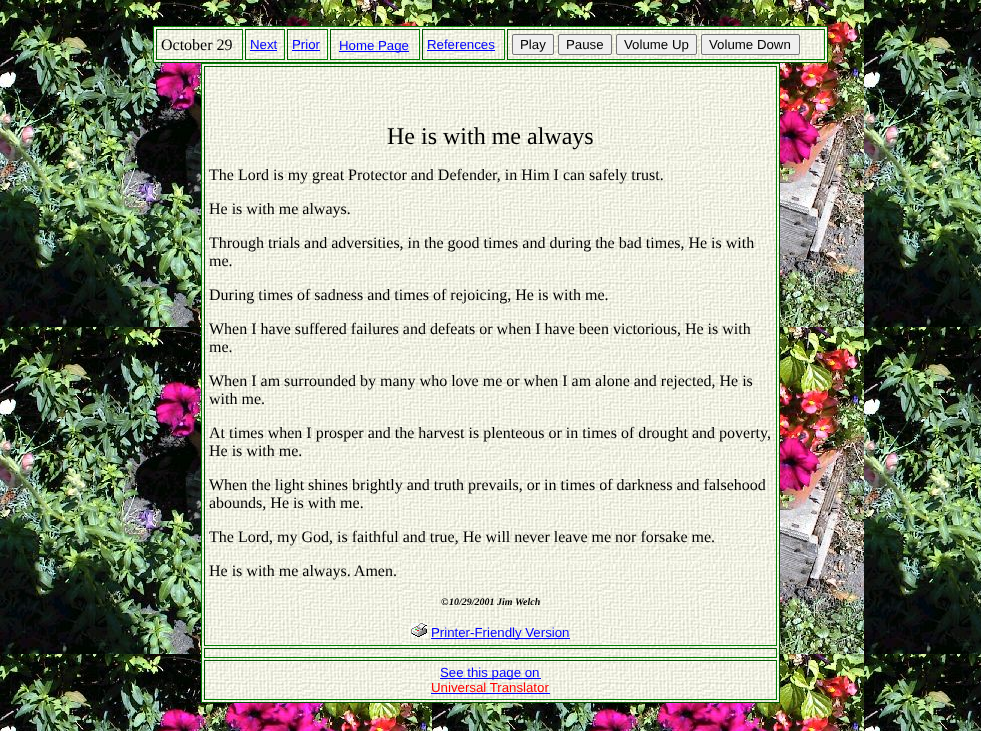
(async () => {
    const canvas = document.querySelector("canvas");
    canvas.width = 981;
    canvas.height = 731;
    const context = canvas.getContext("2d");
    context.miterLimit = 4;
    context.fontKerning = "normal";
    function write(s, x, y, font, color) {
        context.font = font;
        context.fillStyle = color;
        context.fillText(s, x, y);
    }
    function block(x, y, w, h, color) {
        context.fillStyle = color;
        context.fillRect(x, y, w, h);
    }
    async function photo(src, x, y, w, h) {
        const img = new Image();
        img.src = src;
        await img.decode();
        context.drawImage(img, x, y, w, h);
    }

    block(0, 0, 981, 731, "rgb(255, 255, 255)");
    await photo("media/1.png", 0, 0, 981, 731);
    await photo("media/2.png", 154, 27, 673, 35);
    block(153, 26, 675, 1, "rgb(0, 128, 0)");
    block(827, 26, 1, 37, "rgb(0, 85, 0)");
    block(153, 62, 675, 1, "rgb(0, 85, 0)");
    block(153, 26, 1, 37, "rgb(0, 128, 0)");
    block(156, 29, 87, 1, "rgb(0, 85, 0)");
    block(242, 29, 1, 31, "rgb(0, 128, 0)");
    block(156, 59, 87, 1, "rgb(0, 128, 0)");
    block(156, 29, 1, 31, "rgb(0, 85, 0)");
    write("October 29", 161, 50, "16px Liberation Serif", "rgb(0, 0, 0)");
    block(245, 29, 40, 1, "rgb(0, 85, 0)");
    block(284, 29, 1, 31, "rgb(0, 128, 0)");
    block(245, 59, 40, 1, "rgb(0, 128, 0)");
    block(245, 29, 1, 31, "rgb(0, 85, 0)");
    write("Next", 250, 49, "13.25px Liberation Sans", "rgb(0, 0, 255)");
    block(250, 50, 27, 1, "rgb(0, 0, 255)");
    block(287, 29, 41, 1, "rgb(0, 85, 0)");
    block(327, 29, 1, 31, "rgb(0, 128, 0)");
    block(287, 59, 41, 1, "rgb(0, 128, 0)");
    block(287, 29, 1, 31, "rgb(0, 85, 0)");
    write("Prior", 292, 49, "13.25px Liberation Sans", "rgb(0, 0, 255)");
    block(292, 50, 28, 1, "rgb(0, 0, 255)");
    block(330, 29, 90, 1, "rgb(0, 85, 0)");
    block(419, 29, 1, 31, "rgb(0, 128, 0)");
    block(330, 59, 90, 1, "rgb(0, 128, 0)");
    block(330, 29, 1, 31, "rgb(0, 85, 0)");
    block(339, 51, 70, 1, "rgb(0, 0, 255)");
    write("Home Page", 339, 50, "13.25px Liberation Sans", "rgb(0, 0, 255)");
    block(422, 29, 83, 1, "rgb(0, 85, 0)");
    block(504, 29, 1, 31, "rgb(0, 128, 0)");
    block(422, 59, 83, 1, "rgb(0, 128, 0)");
    block(422, 29, 1, 31, "rgb(0, 85, 0)");
    write("References", 427, 49, "13.25px Liberation Sans", "rgb(0, 0, 255)");
    block(427, 50, 68, 1, "rgb(0, 0, 255)");
    block(507, 29, 318, 1, "rgb(0, 85, 0)");
    block(824, 29, 1, 31, "rgb(0, 128, 0)");
    block(507, 59, 318, 1, "rgb(0, 128, 0)");
    block(507, 29, 1, 31, "rgb(0, 85, 0)");
    context.fillStyle = "rgb(239, 239, 239)";
    context.beginPath();
    context.roundRect(512.5, 34.5, 41, 20, 1.5);
    context.fill();
    context.strokeStyle = "rgb(118, 118, 118)";
    context.stroke();
    write("Play", 520, 49, "13.25px Liberation Sans", "rgb(0, 0, 0)");
    context.fillStyle = "rgb(239, 239, 239)";
    context.beginPath();
    context.roundRect(558.5, 34.5, 53, 20, 1.5);
    context.fill();
    context.stroke();
    write("Pause", 566, 49, "13.25px Liberation Sans", "rgb(0, 0, 0)");
    context.fillStyle = "rgb(239, 239, 239)";
    context.beginPath();
    context.roundRect(616.5, 34.5, 80, 20, 1.5);
    context.fill();
    context.stroke();
    write("Volume Up", 624, 49, "13.25px Liberation Sans", "rgb(0, 0, 0)");
    context.fillStyle = "rgb(239, 239, 239)";
    context.beginPath();
    context.roundRect(701.5, 34.5, 98, 20, 1.5);
    context.fill();
    context.stroke();
    write("Volume Down", 709, 49, "13.25px Liberation Sans", "rgb(0, 0, 0)");
    await photo("media/3.png", 202, 64, 577, 638);
    block(201, 63, 579, 1, "rgb(0, 128, 0)");
    block(779, 63, 1, 640, "rgb(0, 85, 0)");
    block(201, 702, 579, 1, "rgb(0, 85, 0)");
    block(201, 63, 1, 640, "rgb(0, 128, 0)");
    block(204, 66, 573, 1, "rgb(0, 85, 0)");
    block(776, 66, 1, 580, "rgb(0, 128, 0)");
    block(204, 645, 573, 1, "rgb(0, 128, 0)");
    block(204, 66, 1, 580, "rgb(0, 85, 0)");
    write("He is with me always", 387, 144, "24px Liberation Serif", "rgb(0, 0, 0)");
    write("The Lord is my great Protector and Defender, in Him I can safely trust.", 209, 180, "16px Liberation Serif", "rgb(0, 0, 0)");
    write("He is with me always.", 209, 214, "16px Liberation Serif", "rgb(0, 0, 0)");
    write("Through trials and adversities, in the good times and during the bad times, He is with", 209, 248, "16px Liberation Serif", "rgb(0, 0, 0)");
    write("me.", 209, 266, "16px Liberation Serif", "rgb(0, 0, 0)");
    write("During times of sadness and times of rejoicing, He is with me.", 209, 300, "16px Liberation Serif", "rgb(0, 0, 0)");
    write("When I have suffered failures and defeats or when I have been victorious, He is with", 209, 334, "16px Liberation Serif", "rgb(0, 0, 0)");
    write("me.", 209, 352, "16px Liberation Serif", "rgb(0, 0, 0)");
    write("When I am surrounded by many who love me or when I am alone and rejected, He is", 209, 386, "16px Liberation Serif", "rgb(0, 0, 0)");
    write("with me.", 209, 404, "16px Liberation Serif", "rgb(0, 0, 0)");
    write("At times when I prosper and the harvest is plenteous or in times of drought and poverty,", 209, 438, "16px Liberation Serif", "rgb(0, 0, 0)");
    write("He is with me.", 209, 456, "16px Liberation Serif", "rgb(0, 0, 0)");
    write("When the light shines brightly and truth prevails, or in times of darkness and falsehood", 209, 490, "16px Liberation Serif", "rgb(0, 0, 0)");
    write("abounds, He is with me.", 209, 508, "16px Liberation Serif", "rgb(0, 0, 0)");
    write("The Lord, my God, is faithful and true, He will never leave me nor forsake me.", 209, 542, "16px Liberation Serif", "rgb(0, 0, 0)");
    write("He is with me always. Amen.", 209, 576, "16px Liberation Serif", "rgb(0, 0, 0)");
    write("©", 441, 605, "bold 10px Liberation Serif", "rgb(0, 0, 0)");
    write("10/29/2001 Jim Welch", 449, 605, "italic bold 10px Liberation Serif", "rgb(0, 0, 0)");
    await photo("media/4.png", 411, 623, 16, 14);
    block(431, 638, 139, 1, "rgb(0, 0, 255)");
    write("Printer-Friendly Version", 431, 637, "13.25px Liberation Sans", "rgb(0, 0, 255)");
    block(204, 648, 573, 1, "rgb(0, 85, 0)");
    block(776, 648, 1, 10, "rgb(0, 128, 0)");
    block(204, 657, 573, 1, "rgb(0, 128, 0)");
    block(204, 648, 1, 10, "rgb(0, 85, 0)");
    block(204, 660, 573, 1, "rgb(0, 85, 0)");
    block(776, 660, 1, 40, "rgb(0, 128, 0)");
    block(204, 699, 573, 1, "rgb(0, 128, 0)");
    block(204, 660, 1, 40, "rgb(0, 85, 0)");
    block(440, 678, 101, 1, "rgb(0, 0, 255)");
    write("See this page on", 440, 677, "13.25px Liberation Sans", "rgb(0, 0, 255)");
    write("Universal Translator", 431, 692, "13.25px Liberation Sans", "rgb(255, 0, 0)");
    block(431, 693, 119, 1, "rgb(0, 0, 255)");
})();
